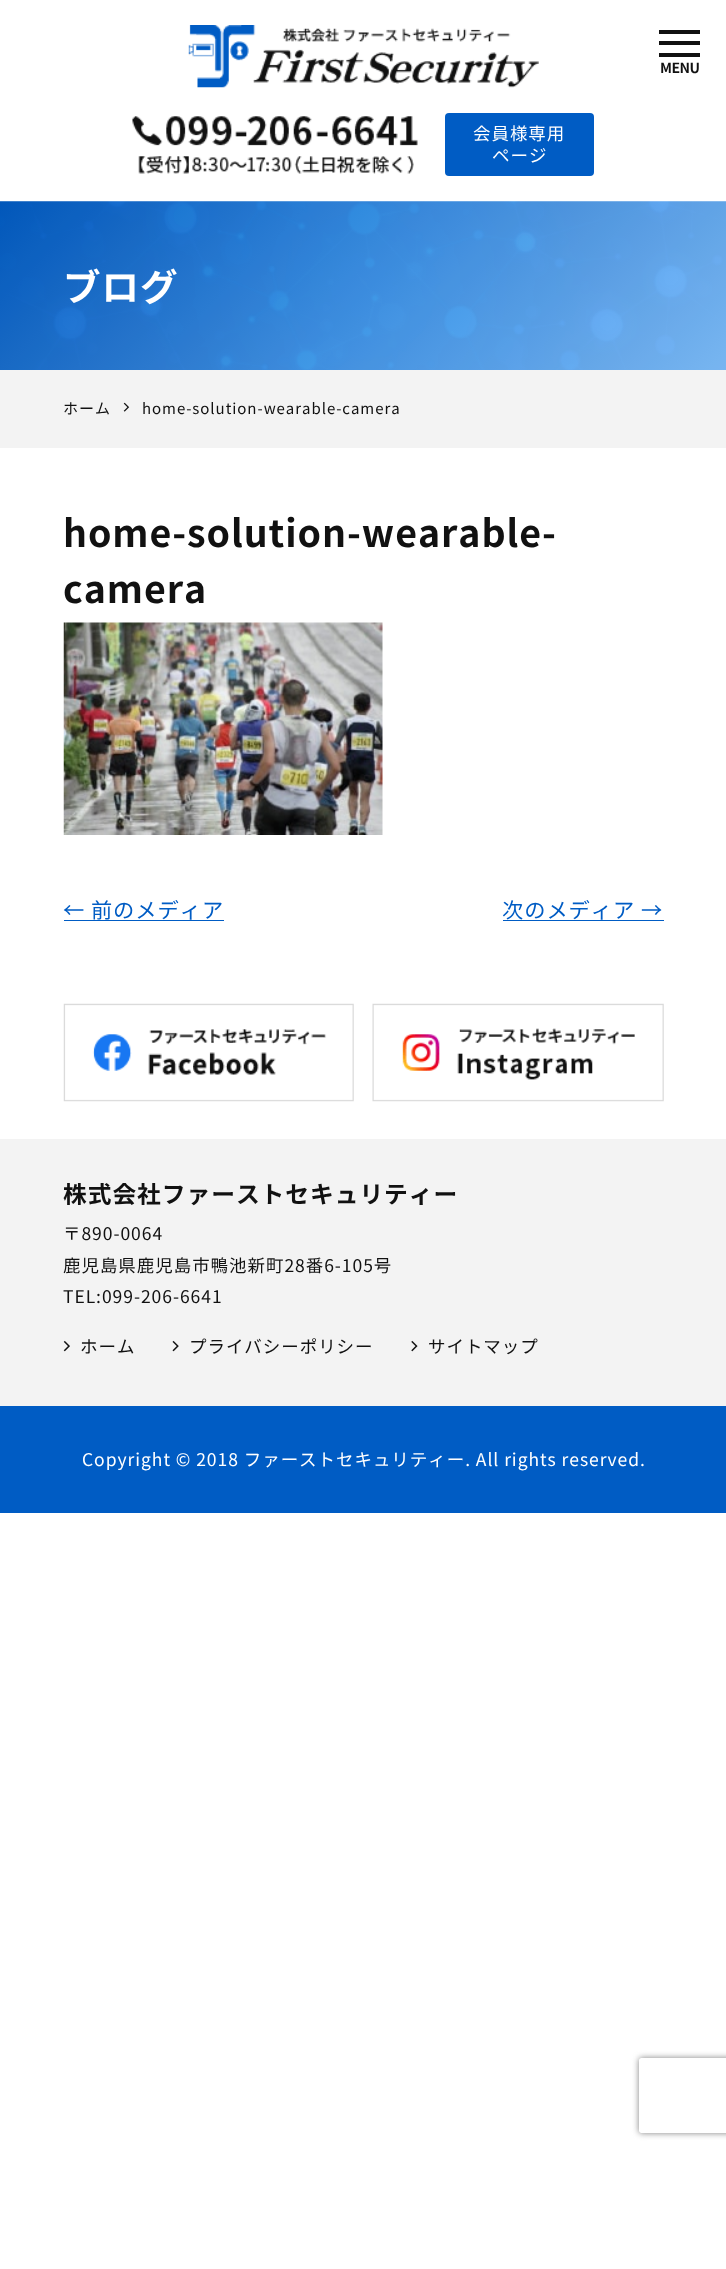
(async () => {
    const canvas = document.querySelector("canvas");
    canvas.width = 726;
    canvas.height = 2269;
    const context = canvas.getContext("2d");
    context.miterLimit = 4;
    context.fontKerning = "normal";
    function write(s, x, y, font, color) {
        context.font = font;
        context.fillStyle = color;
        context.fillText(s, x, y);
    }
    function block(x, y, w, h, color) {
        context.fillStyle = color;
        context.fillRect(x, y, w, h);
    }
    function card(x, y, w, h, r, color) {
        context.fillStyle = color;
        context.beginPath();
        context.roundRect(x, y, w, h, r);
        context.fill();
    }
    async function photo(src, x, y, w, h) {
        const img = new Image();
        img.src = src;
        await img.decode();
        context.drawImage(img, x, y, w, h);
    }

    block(0, 0, 726, 2269, "rgb(255, 255, 255)");
    block(659, 30, 41, 4, "rgb(17, 17, 17)");
    block(659, 41, 41, 4, "rgb(17, 17, 17)");
    block(659, 53, 41, 4, "rgb(17, 17, 17)");
    context.letterSpacing = "-0.5px";
    write("MENU", 660, 73, "bold 14px Noto Sans CJK JP", "rgb(17, 17, 17)");
    await photo("media/1.png", 188, 25, 351, 63);
    await photo("media/2.png", 132, 116, 286, 58);
    card(445, 113, 149, 63, 4, "rgb(0, 92, 196)");
    context.letterSpacing = "0.95px";
    write("会員様専用", 473, 140, "17.5px Noto Sans CJK JP", "rgb(255, 255, 255)");
    write("ページ", 492, 162, "17.5px Noto Sans CJK JP", "rgb(255, 255, 255)");
    await photo("media/3.png", 0, 201, 726, 169);
    write("ブログ", 63, 301, "bold 37.5px Noto Sans CJK JP", "rgb(255, 255, 255)");
    block(0, 370, 726, 78, "rgb(243, 243, 243)");
    write("ホーム", 63, 414, "15px Noto Sans CJK JP", "rgb(17, 17, 17)");
    await photo("media/4.png", 123, 402, 7, 10);
    write("home-solution-wearable-camera", 142, 414, "15px Noto Sans CJK JP", "rgb(17, 17, 17)");
    write("home-solution-wearable-", 63, 547, "bold 37.5px Noto Sans CJK JP", "rgb(17, 17, 17)");
    write("camera", 63, 603, "bold 37.5px Noto Sans CJK JP", "rgb(17, 17, 17)");
    await photo("media/5.png", 63, 622, 320, 213);
    write("← 前のメディア", 63, 918, "21.25px Noto Sans CJK JP", "rgb(0, 92, 196)");
    block(64, 920, 160, 1, "rgb(0, 92, 196)");
    write("次のメディア →", 502, 918, "21.25px Noto Sans CJK JP", "rgb(0, 92, 196)");
    block(503, 920, 161, 1, "rgb(0, 92, 196)");
    await photo("media/6.png", 63, 1003, 291, 99);
    await photo("media/7.png", 372, 1003, 292, 99);
    block(0, 1139, 726, 267, "rgb(243, 243, 243)");
    write("株式会社ファーストセキュリティー", 63, 1203, "bold 23.75px Noto Sans CJK JP", "rgb(17, 17, 17)");
    write("〒890-0064", 63, 1240, "17.5px Noto Sans CJK JP", "rgb(17, 17, 17)");
    write("鹿児島県鹿児島市鴨池新町28番6-105号", 63, 1272, "17.5px Noto Sans CJK JP", "rgb(17, 17, 17)");
    write("TEL:099-206-6641", 63, 1303, "17.5px Noto Sans CJK JP", "rgb(17, 17, 17)");
    await photo("media/8.png", 63, 1340, 7, 12);
    write("ホーム", 80, 1353, "17.5px Noto Sans CJK JP", "rgb(17, 17, 17)");
    await photo("media/9.png", 172, 1340, 7, 12);
    write("プライバシーポリシー", 189, 1353, "17.5px Noto Sans CJK JP", "rgb(17, 17, 17)");
    await photo("media/10.png", 411, 1340, 7, 12);
    write("サイトマップ", 428, 1353, "17.5px Noto Sans CJK JP", "rgb(17, 17, 17)");
    block(0, 1406, 726, 107, "rgb(0, 92, 196)");
    write("Copyright © 2018 ファーストセキュリティー. All rights reserved.", 82, 1466, "17.5px Noto Sans CJK JP", "rgb(255, 255, 255)");
    context.save();
    context.beginPath();
    context.moveTo(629, 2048);
    context.lineTo(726, 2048);
    context.lineTo(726, 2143);
    context.lineTo(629, 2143);
    context.closePath();
    context.moveTo(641.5, 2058);
    context.lineTo(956.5, 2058);
    context.bezierCurveTo(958, 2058, 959, 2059, 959, 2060.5);
    context.lineTo(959, 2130.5);
    context.bezierCurveTo(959, 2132, 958, 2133, 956.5, 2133);
    context.lineTo(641.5, 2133);
    context.bezierCurveTo(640, 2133, 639, 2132, 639, 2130.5);
    context.lineTo(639, 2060.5);
    context.bezierCurveTo(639, 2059, 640, 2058, 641.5, 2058);
    context.closePath();
    context.clip("evenodd");
    context.fillStyle = "rgb(128, 128, 128)";
    context.filter = "blur(3px)";
    context.beginPath();
    context.roundRect(639, 2058, 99, 75, 2.5);
    context.fill();
    context.filter = "none";
    context.restore();
})();
